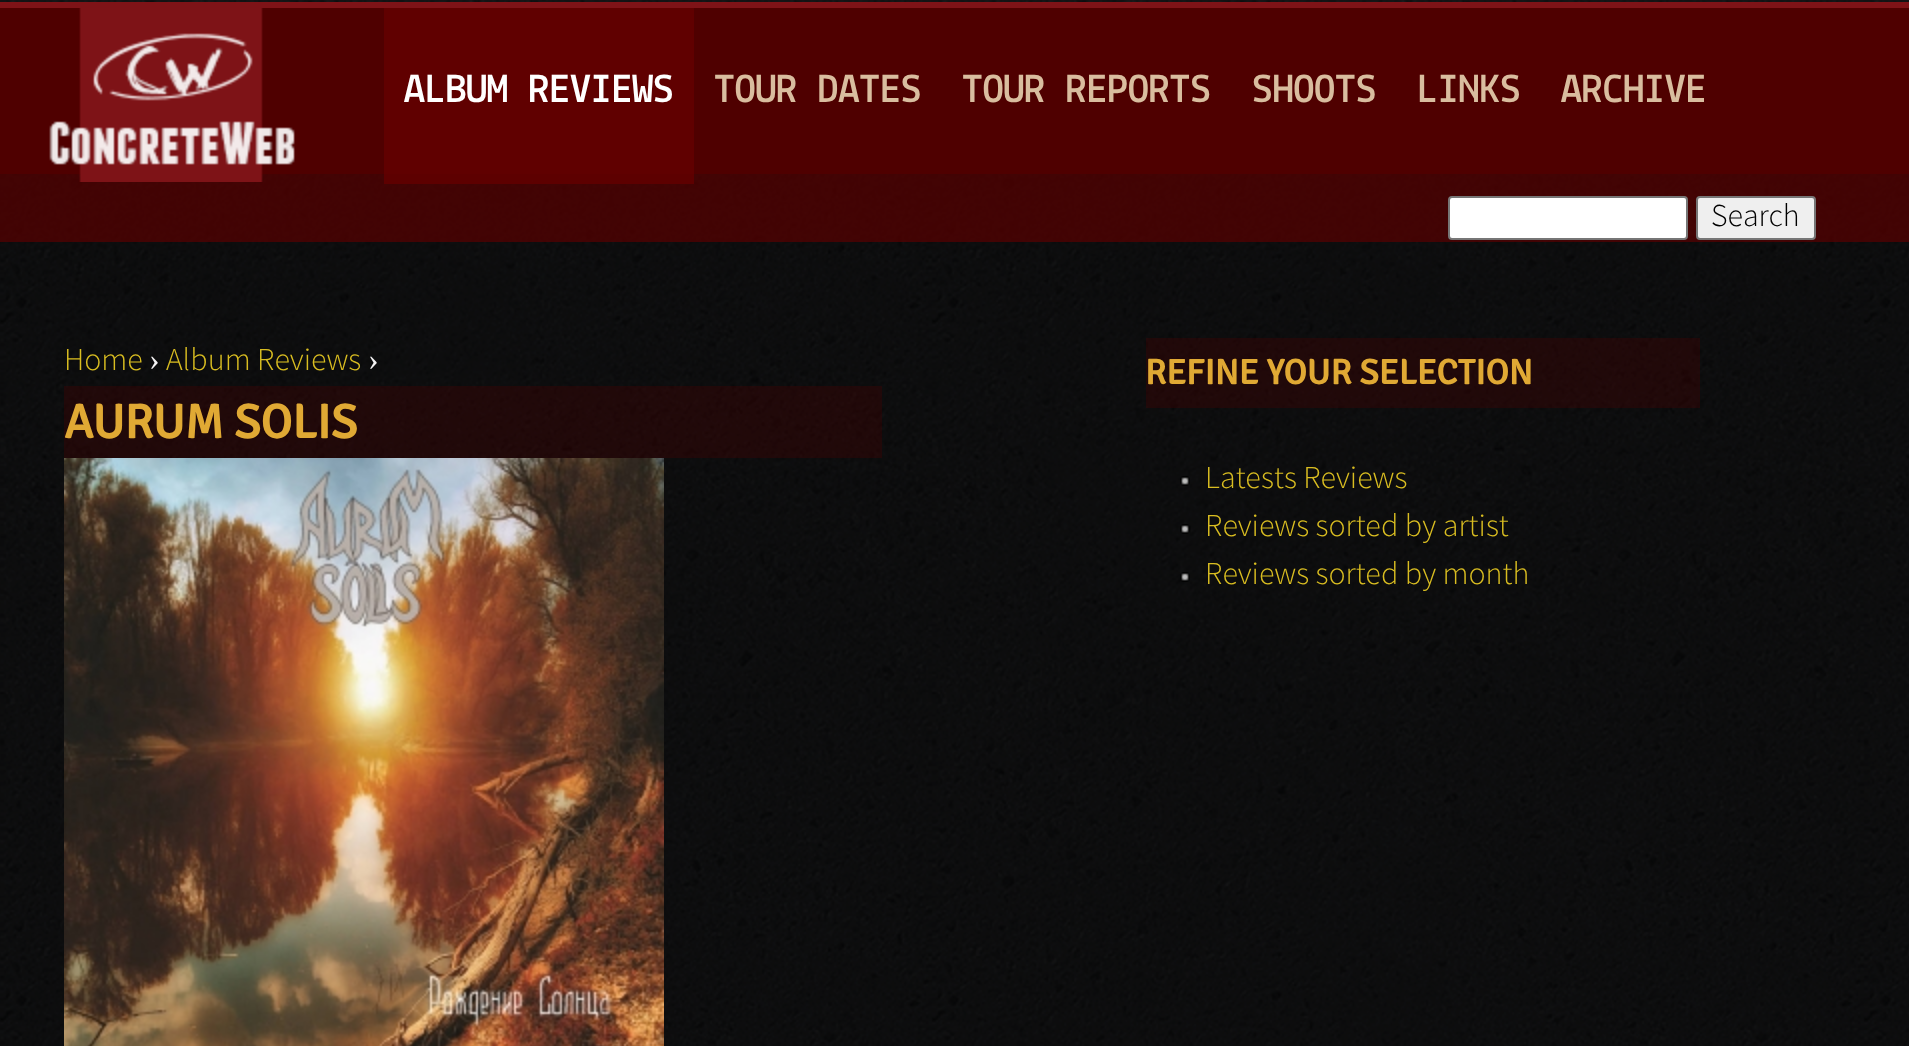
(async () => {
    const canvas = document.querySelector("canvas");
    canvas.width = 1909;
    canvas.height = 1046;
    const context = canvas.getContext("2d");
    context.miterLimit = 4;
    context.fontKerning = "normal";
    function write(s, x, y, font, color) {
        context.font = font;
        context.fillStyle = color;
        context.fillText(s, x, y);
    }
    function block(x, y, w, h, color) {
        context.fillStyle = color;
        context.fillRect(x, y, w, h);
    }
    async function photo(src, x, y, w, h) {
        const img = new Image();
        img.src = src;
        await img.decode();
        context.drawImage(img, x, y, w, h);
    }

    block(0, 0, 1909, 1046, "rgb(255, 255, 255)");
    await photo("media/1.png", 0, 0, 1909, 1046);
    block(0, 8, 1909, 166, "rgb(79, 0, 0)");
    block(0, 2, 1909, 6, "rgb(126, 19, 23)");
    block(0, 174, 1909, 68, "rgba(79, 0, 0, 0.8)");
    await photo("media/2.png", 49, 8, 246, 174);
    block(384, 8, 310, 176, "rgba(100, 0, 0, 0.8)");
    write("ALBUM REVIEWS", 404, 102, "bold 41.5px Lekton", "rgb(255, 255, 255)");
    write("TOUR DATES", 714, 102, "bold 41.5px Lekton", "rgb(217, 189, 159)");
    write("TOUR REPORTS", 962, 102, "bold 41.5px Lekton", "rgb(217, 189, 159)");
    write("SHOOTS", 1252, 102, "bold 41.5px Lekton", "rgb(217, 189, 159)");
    write("LINKS", 1417, 102, "bold 41.5px Lekton", "rgb(217, 189, 159)");
    write("ARCHIVE", 1561, 102, "bold 41.5px Lekton", "rgb(217, 189, 159)");
    context.fillStyle = "rgb(255, 255, 255)";
    context.beginPath();
    context.roundRect(1449, 197, 238, 42, 3);
    context.fill();
    context.strokeStyle = "rgb(118, 118, 118)";
    context.lineWidth = 2;
    context.stroke();
    context.fillStyle = "rgb(239, 239, 239)";
    context.beginPath();
    context.roundRect(1697, 197, 118, 42, 3);
    context.fill();
    context.stroke();
    write("Search", 1711, 226, "300 32px Source Sans Pro", "rgb(0, 0, 0)");
    block(0, 242, 1909, 804, "rgba(0, 0, 0, 0.3)");
    write("Home", 64, 370, "300 32px Source Sans Pro", "rgb(217, 189, 33)");
    write("›", 149, 370, "32px Liberation Serif", "rgb(245, 244, 245)");
    write("Album Reviews", 166, 370, "300 32px Source Sans Pro", "rgb(217, 189, 33)");
    write("›", 368, 370, "32px Liberation Serif", "rgb(245, 244, 245)");
    block(64, 386, 818, 72, "rgba(79, 0, 0, 0.3)");
    write("AURUM SOLIS", 64, 438, "bold 48px Signika", "rgb(224, 169, 52)");
    await photo("media/3.png", 64, 458, 600, 588);
    block(1146, 338, 554, 70, "rgba(79, 0, 0, 0.3)");
    write("REFINE YOUR SELECTION", 1145, 384, "bold 35.25px Signika", "rgb(224, 169, 52)");
    await photo("media/4.png", 1180, 476, 10, 10);
    write("Latests Reviews", 1205, 488, "300 32px Source Sans Pro", "rgb(217, 189, 33)");
    await photo("media/5.png", 1180, 524, 11, 10);
    write("Reviews sorted by artist", 1205, 536, "300 32px Source Sans Pro", "rgb(217, 189, 33)");
    await photo("media/6.png", 1180, 572, 10, 10);
    write("Reviews sorted by month", 1205, 584, "300 32px Source Sans Pro", "rgb(217, 189, 33)");
})();
